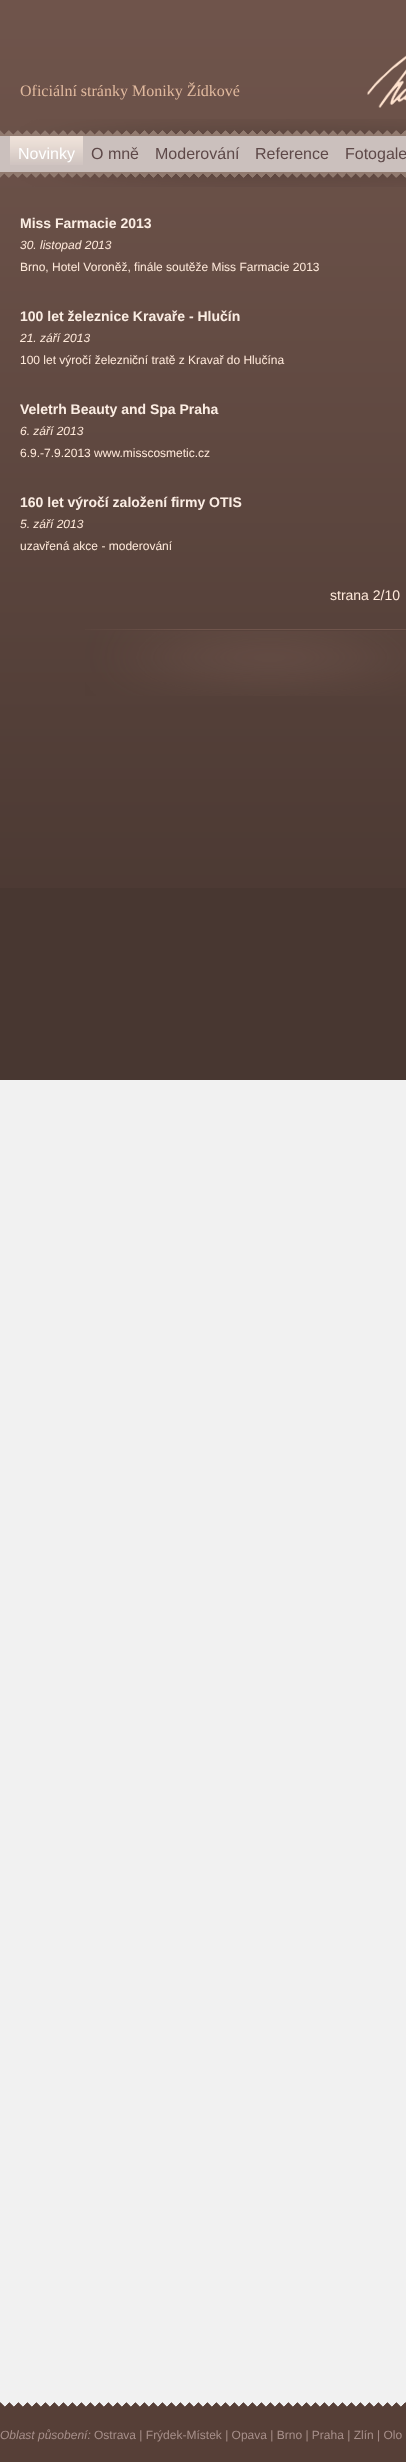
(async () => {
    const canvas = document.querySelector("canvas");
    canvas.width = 406;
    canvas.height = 2462;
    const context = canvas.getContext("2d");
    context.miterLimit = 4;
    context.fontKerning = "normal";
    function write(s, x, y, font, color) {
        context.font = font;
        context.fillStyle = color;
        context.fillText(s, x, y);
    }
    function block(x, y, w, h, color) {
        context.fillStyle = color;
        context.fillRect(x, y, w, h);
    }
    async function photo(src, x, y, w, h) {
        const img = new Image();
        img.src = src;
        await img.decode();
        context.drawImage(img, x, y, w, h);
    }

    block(0, 0, 406, 2462, "rgb(241, 241, 241)");
    block(0, 888, 406, 192, "rgb(72, 55, 49)");
    await photo("media/1.png", 0, 0, 406, 888);
    write("Oficiální stránky Moniky Žídkové", 20, 96, "16px Liberation Serif", "rgb(224, 185, 158)");
    await photo("media/2.png", 367, 55, 39, 53);
    await photo("media/3.png", 0, 119, 406, 68);
    await photo("media/4.png", 10, 136, 73, 29);
    write("Novinky", 18, 159, "16px Liberation Sans", "rgb(255, 255, 255)");
    write("O mně", 91, 159, "16px Liberation Sans", "rgb(94, 73, 73)");
    write("Moderování", 155, 159, "16px Liberation Sans", "rgb(94, 73, 73)");
    write("Reference", 255, 159, "16px Liberation Sans", "rgb(94, 73, 73)");
    write("Fotogale", 345, 159, "16px Liberation Sans", "rgb(94, 73, 73)");
    await photo("media/5.png", 85, 629, 321, 67);
    write("Miss Farmacie 2013", 20, 228, "bold 14px Liberation Sans", "rgb(251, 237, 227)");
    write("30. listopad 2013", 20, 249, "italic 12px Liberation Sans", "rgb(255, 233, 218)");
    write("Brno, Hotel Voroněž, finále soutěže Miss Farmacie 2013", 20, 271, "12px Liberation Sans", "rgb(255, 233, 218)");
    write("100 let železnice Kravaře - Hlučín", 20, 321, "bold 14px Liberation Sans", "rgb(251, 237, 227)");
    write("21. září 2013", 20, 342, "italic 12px Liberation Sans", "rgb(255, 233, 218)");
    write("100 let výročí železniční tratě z Kravař do Hlučína", 20, 364, "12px Liberation Sans", "rgb(255, 233, 218)");
    write("Veletrh Beauty and Spa Praha", 20, 414, "bold 14px Liberation Sans", "rgb(251, 237, 227)");
    write("6. září 2013", 20, 435, "italic 12px Liberation Sans", "rgb(255, 233, 218)");
    write("6.9.-7.9.2013 www.misscosmetic.cz", 20, 457, "12px Liberation Sans", "rgb(255, 233, 218)");
    write("160 let výročí založení firmy OTIS", 20, 507, "bold 14px Liberation Sans", "rgb(251, 237, 227)");
    write("5. září 2013", 20, 528, "italic 12px Liberation Sans", "rgb(255, 233, 218)");
    write("uzavřená akce - moderování", 20, 550, "12px Liberation Sans", "rgb(255, 233, 218)");
    write("strana 2/10", 330, 600, "14px Liberation Sans", "rgb(255, 233, 218)");
    await photo("media/6.png", 0, 2402, 406, 60);
    write("Oblast působení:", 0, 2439, "italic 12px Liberation Sans", "rgb(167, 143, 138)");
    write("Ostrava | Frýdek-Místek | Opava | Brno | Praha | Zlín | Olo", 94, 2439, "12px Liberation Sans", "rgb(167, 143, 138)");
})();
